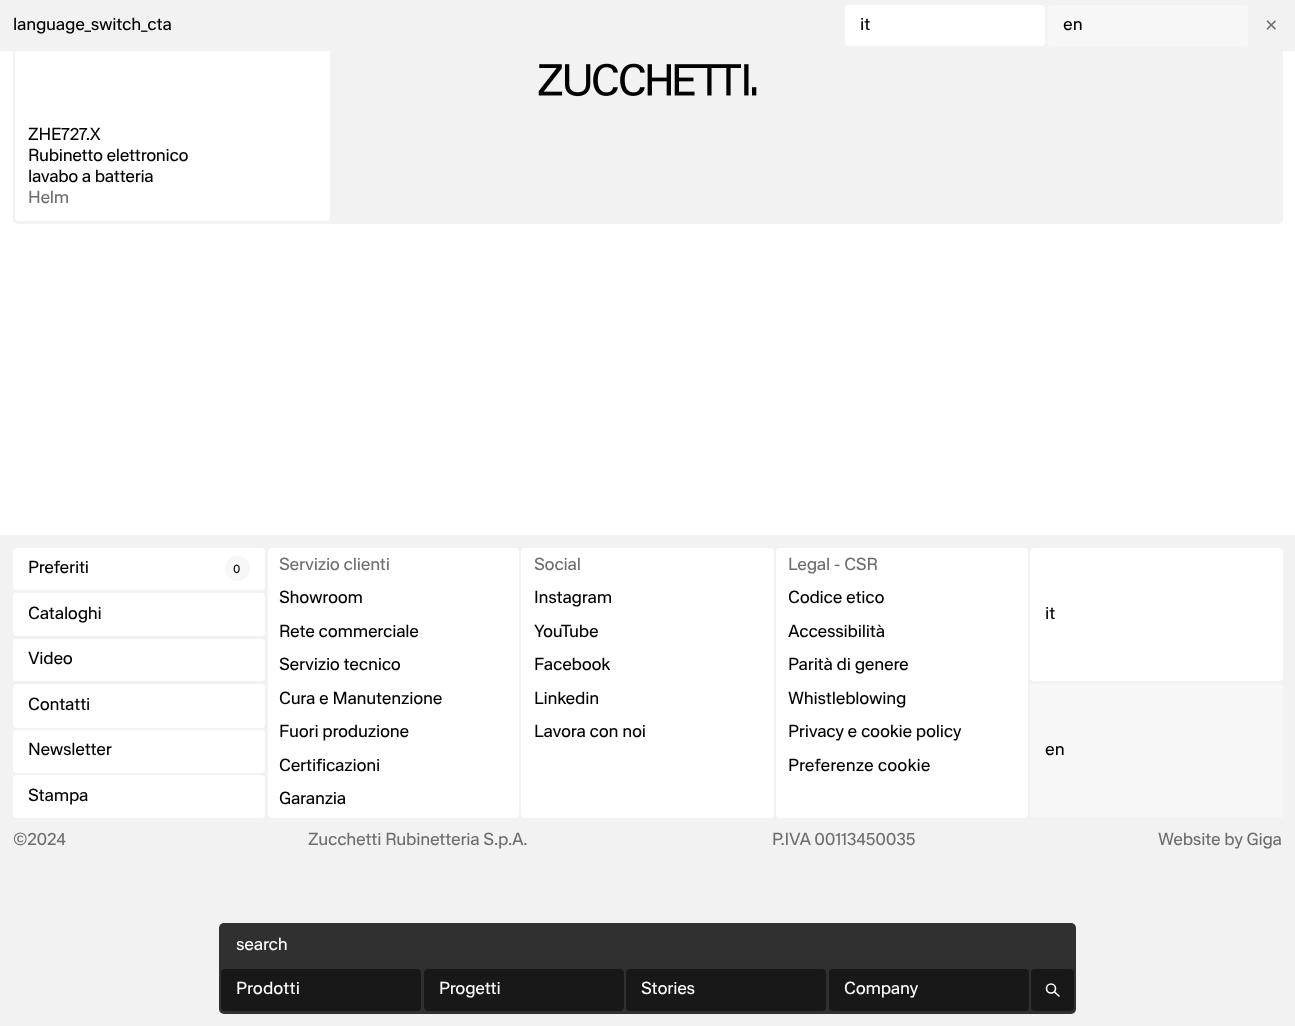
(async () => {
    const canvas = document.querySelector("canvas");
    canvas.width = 1295;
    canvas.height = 1026;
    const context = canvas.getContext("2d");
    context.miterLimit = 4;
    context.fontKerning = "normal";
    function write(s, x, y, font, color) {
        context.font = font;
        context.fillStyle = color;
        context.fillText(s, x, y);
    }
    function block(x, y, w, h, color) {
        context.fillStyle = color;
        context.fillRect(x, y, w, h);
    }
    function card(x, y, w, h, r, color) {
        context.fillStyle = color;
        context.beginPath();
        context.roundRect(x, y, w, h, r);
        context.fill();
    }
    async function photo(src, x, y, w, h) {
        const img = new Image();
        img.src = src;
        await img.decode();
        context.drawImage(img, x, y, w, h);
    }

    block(0, 0, 1295, 1026, "rgb(255, 255, 255)");
    card(13, -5, 1270, 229, 5, "rgb(242, 242, 242)");
    card(15, -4, 315, 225, 4, "rgb(255, 255, 255)");
    block(0, 0, 1295, 51, "rgb(242, 242, 242)");
    context.letterSpacing = "-0.25px";
    write("language_switch_cta", 13, 30, "17.5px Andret", "rgb(0, 0, 0)");
    card(845, 5, 200, 41, 4, "rgb(255, 255, 255)");
    context.letterSpacing = "0px";
    write("it", 860, 30, "17.5px Andret", "rgb(0, 0, 0)");
    card(1048, 5, 200, 41, 4, "rgb(247, 247, 247)");
    write("en", 1063, 30, "17.5px Andret", "rgb(0, 0, 0)");
    await photo("media/1.png", 1266, 20, 10, 10);
    await photo("media/2.png", 538, 63, 219, 34);
    context.letterSpacing = "-0.25px";
    write("ZHE727.X", 28, 140, "17.5px Andret", "rgb(0, 0, 0)");
    context.letterSpacing = "-0.35px";
    write("Rubinetto elettronico", 28, 161, "17.5px Andret", "rgb(0, 0, 0)");
    write("lavabo a batteria", 28, 182, "17.5px Andret", "rgb(0, 0, 0)");
    context.letterSpacing = "-0.25px";
    write("Helm", 28, 203, "17.5px Andret", "rgb(110, 110, 110)");
    block(0, 535, 1295, 491, "rgb(242, 242, 242)");
    card(13, 548, 252, 42, 4, "rgb(255, 255, 255)");
    write("Preferiti", 28, 573, "17.5px Andret", "rgb(0, 0, 0)");
    context.fillStyle = "rgb(247, 247, 247)";
    context.beginPath();
    context.arc(237.5, 568.5, 12.5, 0, Math.PI * 2);
    context.fill();
    write("0", 233, 573, "12px Andret", "rgb(0, 0, 0)");
    card(13, 593, 252, 43, 4, "rgb(255, 255, 255)");
    write("Cataloghi", 28, 619, "17.5px Andret", "rgb(0, 0, 0)");
    card(13, 639, 252, 42, 4, "rgb(255, 255, 255)");
    write("Video", 28, 664, "17.5px Andret", "rgb(0, 0, 0)");
    card(13, 684, 252, 44, 4, "rgb(255, 255, 255)");
    write("Contatti", 28, 710, "17.5px Andret", "rgb(0, 0, 0)");
    card(13, 730, 252, 43, 4, "rgb(255, 255, 255)");
    write("Newsletter", 28, 755, "17.5px Andret", "rgb(0, 0, 0)");
    card(13, 775, 252, 43, 4, "rgb(255, 255, 255)");
    write("Stampa", 28, 801, "17.5px Andret", "rgb(0, 0, 0)");
    card(268, 548, 251, 270, 4, "rgb(255, 255, 255)");
    write("Servizio clienti", 279, 570, "17.5px Andret", "rgb(110, 110, 110)");
    write("Showroom", 279, 603, "17.5px Andret", "rgb(0, 0, 0)");
    write("Rete commerciale", 279, 637, "17.5px Andret", "rgb(0, 0, 0)");
    write("Servizio tecnico", 279, 670, "17.5px Andret", "rgb(0, 0, 0)");
    write("Cura e Manutenzione", 279, 704, "17.5px Andret", "rgb(0, 0, 0)");
    write("Fuori produzione", 279, 737, "17.5px Andret", "rgb(0, 0, 0)");
    write("Certificazioni", 279, 771, "17.5px Andret", "rgb(0, 0, 0)");
    write("Garanzia", 279, 804, "17.5px Andret", "rgb(0, 0, 0)");
    card(521, 548, 253, 270, 4, "rgb(255, 255, 255)");
    write("Social", 534, 570, "17.5px Andret", "rgb(110, 110, 110)");
    write("Instagram", 534, 603, "17.5px Andret", "rgb(0, 0, 0)");
    write("YouTube", 534, 637, "17.5px Andret", "rgb(0, 0, 0)");
    write("Facebook", 534, 670, "17.5px Andret", "rgb(0, 0, 0)");
    write("Linkedin", 534, 704, "17.5px Andret", "rgb(0, 0, 0)");
    write("Lavora con noi", 534, 737, "17.5px Andret", "rgb(0, 0, 0)");
    card(776, 548, 252, 270, 4, "rgb(255, 255, 255)");
    write("Legal - CSR", 788, 570, "17.5px Andret", "rgb(110, 110, 110)");
    write("Codice etico", 788, 603, "17.5px Andret", "rgb(0, 0, 0)");
    write("Accessibilità", 788, 637, "17.5px Andret", "rgb(0, 0, 0)");
    write("Parità di genere", 788, 670, "17.5px Andret", "rgb(0, 0, 0)");
    write("Whistleblowing", 788, 704, "17.5px Andret", "rgb(0, 0, 0)");
    write("Privacy e cookie policy", 788, 737, "17.5px Andret", "rgb(0, 0, 0)");
    context.letterSpacing = "0px";
    write("Preferenze cookie", 788, 771, "17.5px Andret", "rgb(0, 0, 0)");
    card(1030, 548, 253, 133, 4, "rgb(255, 255, 255)");
    write("it", 1045, 619, "17.5px Andret", "rgb(0, 0, 0)");
    card(1030, 684, 253, 134, 4, "rgb(247, 247, 247)");
    write("en", 1045, 755, "17.5px Andret", "rgb(0, 0, 0)");
    context.letterSpacing = "-0.25px";
    write("©2024", 13, 845, "17.5px Andret", "rgb(110, 110, 110)");
    write("Zucchetti Rubinetteria S.p.A.", 308, 845, "17.5px Andret", "rgb(110, 110, 110)");
    write("P.IVA 00113450035", 772, 845, "17.5px Andret", "rgb(110, 110, 110)");
    write("Website by Giga", 1158, 845, "17.5px Andret", "rgb(110, 110, 110)");
    card(219, 923, 857, 91, 5, "rgb(48, 48, 48)");
    write("search", 236, 950, "17.5px Andret", "rgb(255, 255, 255)");
    card(221, 969, 200, 42, 4, "rgb(24, 24, 24)");
    context.letterSpacing = "0px";
    write("Prodotti", 236, 994, "17.5px Andret", "rgb(255, 255, 255)");
    card(424, 969, 200, 42, 4, "rgb(24, 24, 24)");
    context.letterSpacing = "-0.25px";
    write("Progetti", 439, 994, "17.5px Andret", "rgb(255, 255, 255)");
    card(626, 969, 200, 42, 4, "rgb(24, 24, 24)");
    write("Stories", 641, 994, "17.5px Andret", "rgb(255, 255, 255)");
    card(829, 969, 200, 42, 4, "rgb(24, 24, 24)");
    write("Company", 844, 994, "17.5px Andret", "rgb(255, 255, 255)");
    card(1031, 969, 43, 42, 4, "rgb(24, 24, 24)");
    context.beginPath();
    context.arc(1051, 988.5, 4.5, 0, Math.PI * 2);
    context.strokeStyle = "rgb(255, 255, 255)";
    context.lineWidth = 1.6;
    context.stroke();
    context.beginPath();
    context.moveTo(1054.5, 992);
    context.lineTo(1059, 996);
    context.lineCap = "round";
    context.stroke();
})();
